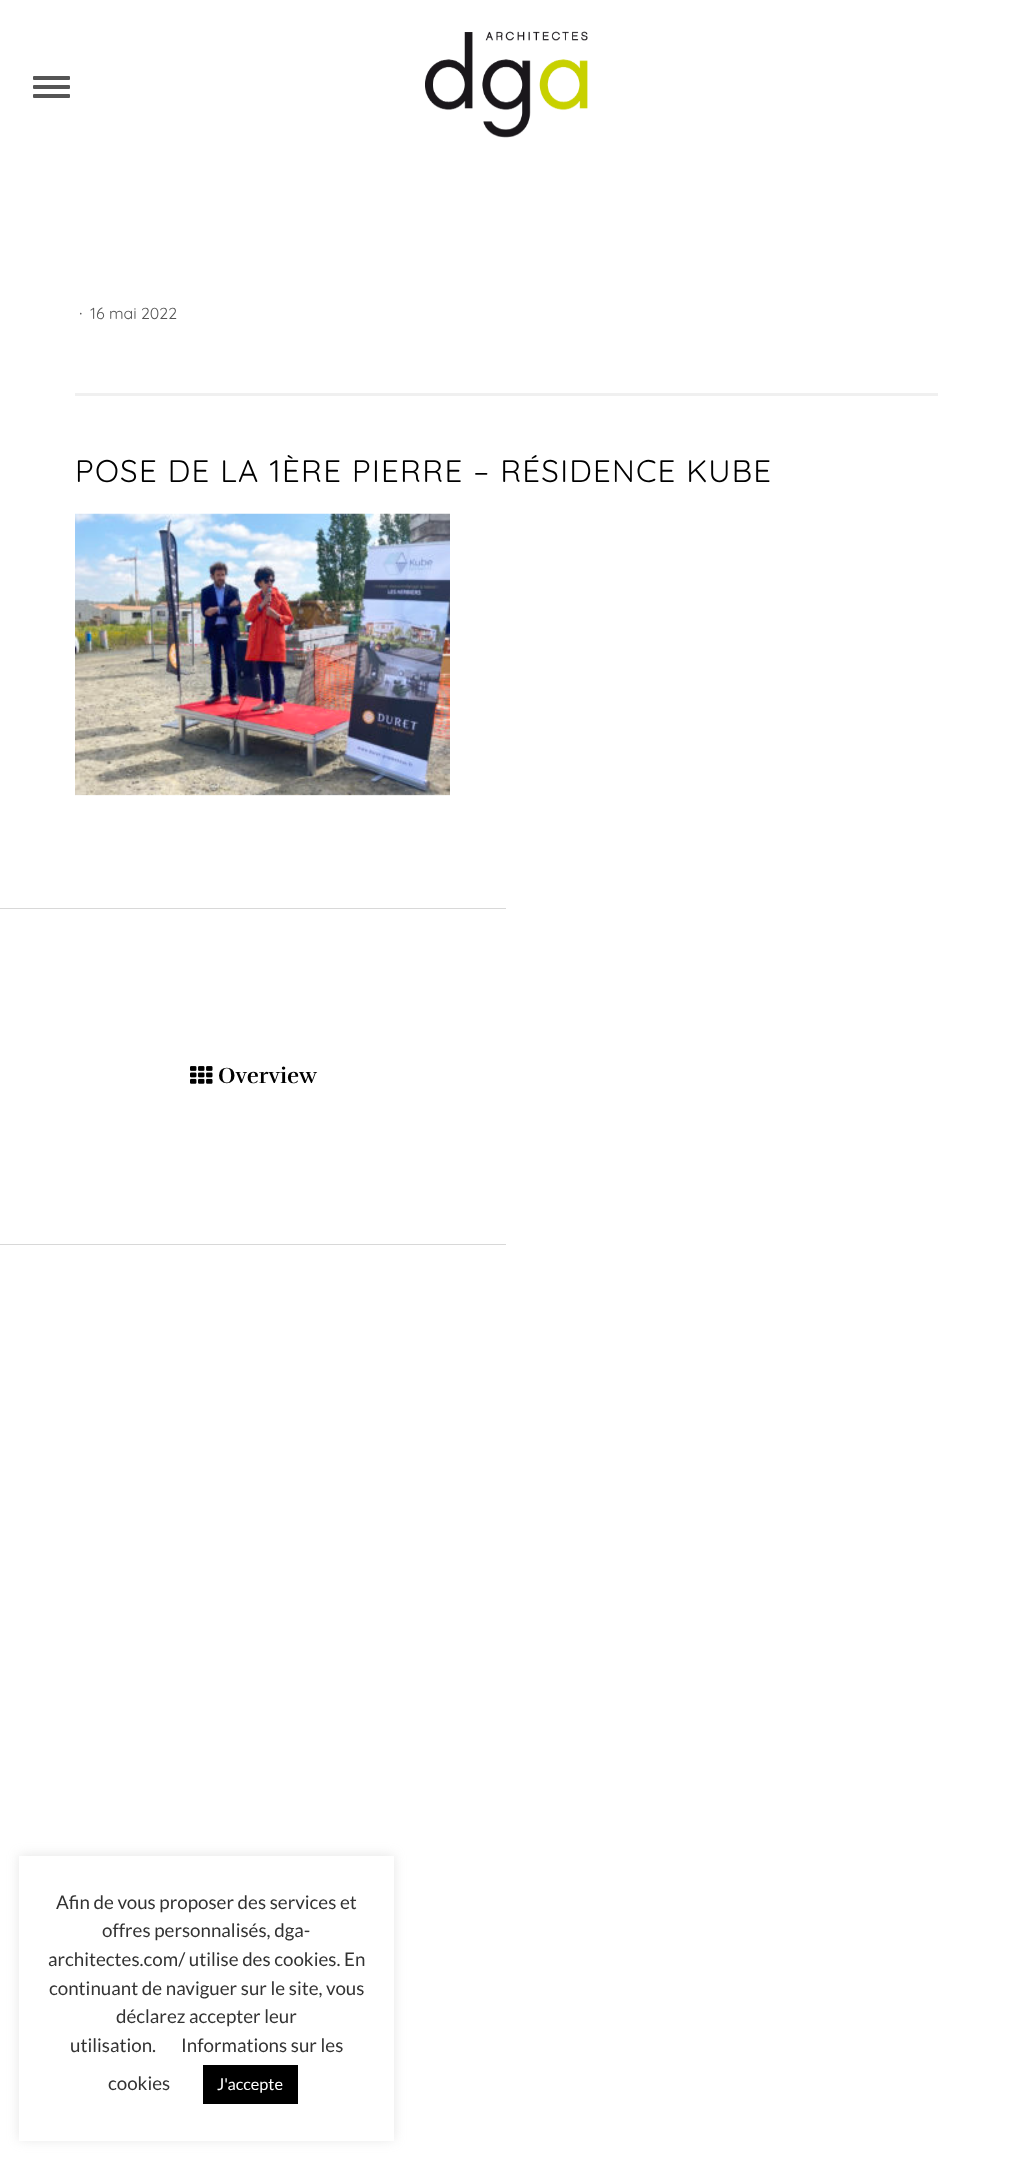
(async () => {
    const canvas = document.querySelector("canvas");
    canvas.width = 1012;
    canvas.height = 2159;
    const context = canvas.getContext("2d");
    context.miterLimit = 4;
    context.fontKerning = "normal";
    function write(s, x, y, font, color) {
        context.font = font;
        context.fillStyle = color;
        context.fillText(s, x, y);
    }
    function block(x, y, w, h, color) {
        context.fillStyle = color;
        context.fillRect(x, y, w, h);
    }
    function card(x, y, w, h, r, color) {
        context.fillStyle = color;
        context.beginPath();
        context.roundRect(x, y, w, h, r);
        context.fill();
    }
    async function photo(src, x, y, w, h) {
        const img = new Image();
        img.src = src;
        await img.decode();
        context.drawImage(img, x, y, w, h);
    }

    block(0, 0, 1012, 2159, "rgb(255, 255, 255)");
    card(33, 76, 37, 4, 1, "rgb(85, 85, 85)");
    card(33, 85, 37, 4, 1, "rgb(85, 85, 85)");
    card(33, 94, 37, 4, 1, "rgb(85, 85, 85)");
    await photo("media/1.png", 425, 31, 163, 107);
    write("·", 79, 319, "18px Quicksand", "rgb(85, 85, 85)");
    write("16 mai 2022", 90, 319, "16px Quicksand", "rgb(85, 85, 85)");
    block(75, 393, 863, 3, "rgb(240, 240, 240)");
    context.letterSpacing = "1.25px";
    write("POSE DE LA 1ÈRE PIERRE – RÉSIDENCE KUBE", 75, 482, "31.25px Quicksand", "rgb(0, 0, 0)");
    await photo("media/2.png", 75, 513, 375, 283);
    block(0, 908, 506, 1, "rgb(216, 216, 216)");
    block(0, 1244, 506, 1, "rgb(216, 216, 216)");
    await photo("media/3.png", 190, 1066, 23, 18);
    context.letterSpacing = "0px";
    write("Overview", 218, 1083, "bold 22.5px Rufina", "rgb(0, 0, 0)");
    context.fillStyle = "rgba(172, 171, 171, 0.3)";
    context.filter = "blur(6px)";
    context.beginPath();
    context.rect(19, 1855, 375, 285);
    context.fill();
    context.filter = "none";
    block(19, 1856, 375, 285, "rgb(255, 255, 255)");
    write("Afin de vous proposer des services et", 56, 1909, "18.75px Lato", "rgb(51, 51, 51)");
    write("offres personnalisés, dga-", 102, 1937, "18.75px Lato", "rgb(51, 51, 51)");
    write("architectes.com/ utilise des cookies. En", 48, 1966, "18.75px Lato", "rgb(51, 51, 51)");
    write("continuant de naviguer sur le site, vous", 49, 1995, "18.75px Lato", "rgb(51, 51, 51)");
    write("déclarez accepter leur", 116, 2023, "18.75px Lato", "rgb(51, 51, 51)");
    write("utilisation.", 70, 2052, "18.75px Lato", "rgb(51, 51, 51)");
    write("Informations sur les", 181, 2052, "18.75px Lato", "rgb(51, 51, 51)");
    write("cookies", 108, 2090, "18.75px Lato", "rgb(51, 51, 51)");
    block(203, 2065, 95, 39, "rgb(0, 0, 0)");
    write("J'accepte", 217, 2090, "16.25px Lato", "rgb(255, 255, 255)");
})();
